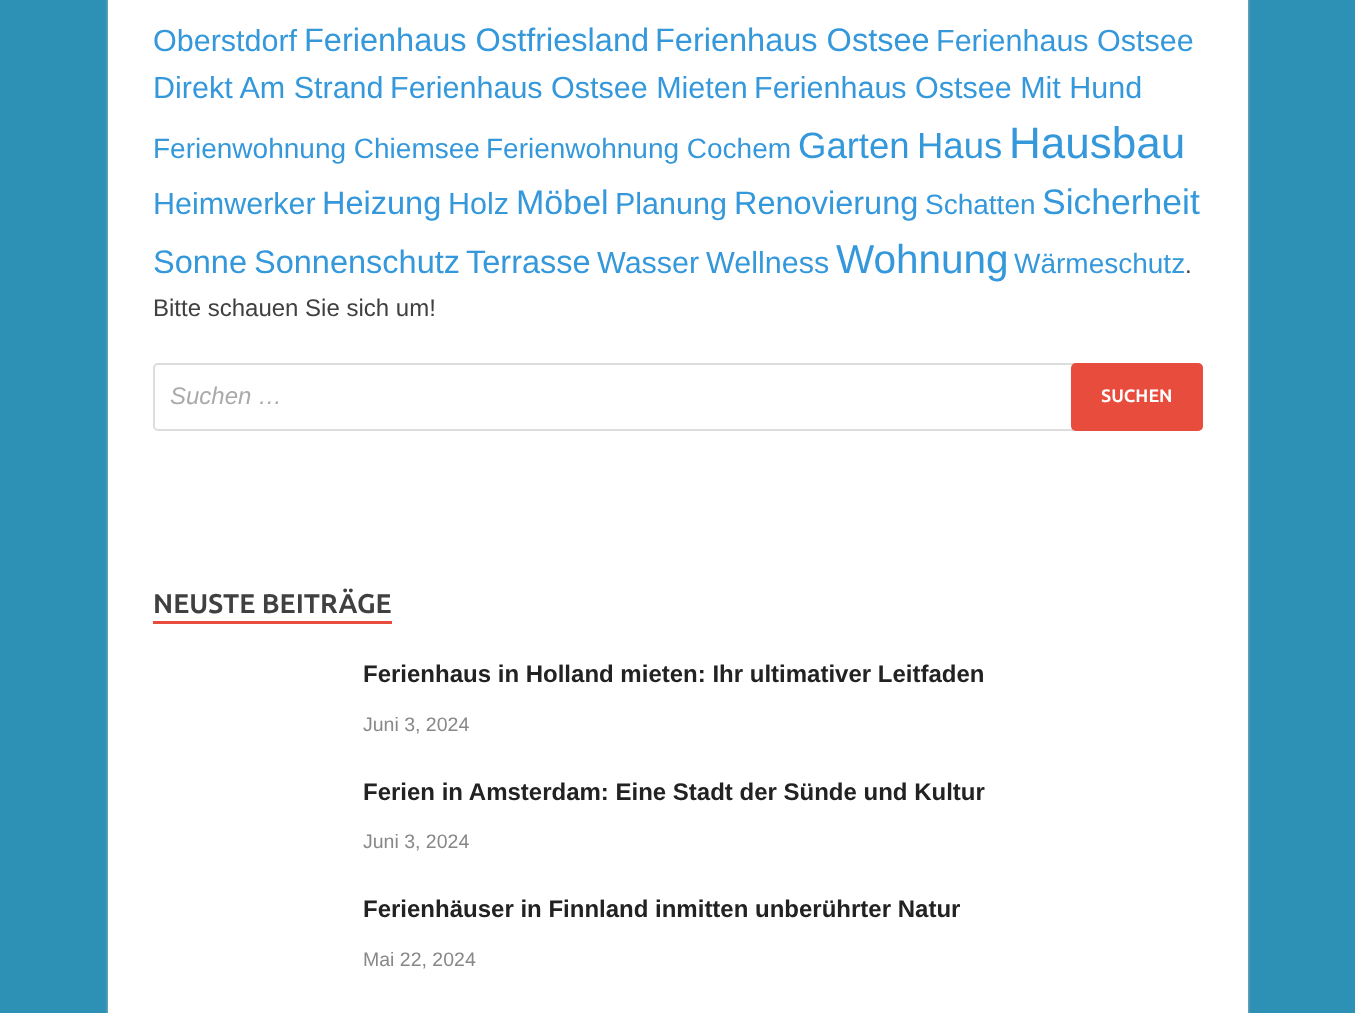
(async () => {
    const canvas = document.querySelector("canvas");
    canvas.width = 1355;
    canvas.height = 1013;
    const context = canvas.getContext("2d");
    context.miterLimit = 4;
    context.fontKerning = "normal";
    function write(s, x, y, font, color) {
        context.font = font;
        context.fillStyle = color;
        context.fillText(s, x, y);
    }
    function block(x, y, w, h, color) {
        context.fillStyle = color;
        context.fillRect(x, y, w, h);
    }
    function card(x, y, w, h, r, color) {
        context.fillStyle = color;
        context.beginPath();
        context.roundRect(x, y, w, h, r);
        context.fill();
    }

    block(0, 0, 1355, 1013, "rgb(45, 144, 181)");
    context.fillStyle = "rgb(187, 187, 187)";
    context.filter = "blur(1.5px)";
    context.beginPath();
    context.rect(108, -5, 1140, 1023);
    context.fill();
    context.filter = "none";
    block(108, 0, 1140, 1013, "rgb(255, 255, 255)");
    write("Oberstdorf", 153, 51, "30.5px Liberation Sans", "rgb(52, 152, 219)");
    write("Ferienhaus Ostfriesland", 304, 51, "32.5px Liberation Sans", "rgb(52, 152, 219)");
    write("Ferienhaus Ostsee", 655, 51, "32.5px Liberation Sans", "rgb(52, 152, 219)");
    write("Ferienhaus Ostsee", 936, 51, "30.5px Liberation Sans", "rgb(52, 152, 219)");
    write("Direkt Am Strand", 153, 98, "30.5px Liberation Sans", "rgb(52, 152, 219)");
    write("Ferienhaus Ostsee Mieten", 390, 98, "30.5px Liberation Sans", "rgb(52, 152, 219)");
    write("Ferienhaus Ostsee Mit Hund", 754, 98, "30.5px Liberation Sans", "rgb(52, 152, 219)");
    write("Ferienwohnung Chiemsee", 153, 158, "28px Liberation Sans", "rgb(52, 152, 219)");
    write("Ferienwohnung Cochem", 486, 158, "28px Liberation Sans", "rgb(52, 152, 219)");
    write("Garten", 798, 158, "36.5px Liberation Sans", "rgb(52, 152, 219)");
    write("Haus", 917, 158, "36.5px Liberation Sans", "rgb(52, 152, 219)");
    write("Hausbau", 1009, 158, "44px Liberation Sans", "rgb(52, 152, 219)");
    write("Heimwerker", 153, 214, "30.5px Liberation Sans", "rgb(52, 152, 219)");
    write("Heizung", 322, 214, "32.5px Liberation Sans", "rgb(52, 152, 219)");
    write("Holz", 448, 214, "30.5px Liberation Sans", "rgb(52, 152, 219)");
    write("Möbel", 516, 214, "34px Liberation Sans", "rgb(52, 152, 219)");
    write("Planung", 615, 214, "30.5px Liberation Sans", "rgb(52, 152, 219)");
    write("Renovierung", 734, 214, "32.5px Liberation Sans", "rgb(52, 152, 219)");
    write("Schatten", 925, 214, "28px Liberation Sans", "rgb(52, 152, 219)");
    write("Sicherheit", 1042, 214, "35.5px Liberation Sans", "rgb(52, 152, 219)");
    write("Sonne", 153, 273, "32.5px Liberation Sans", "rgb(52, 152, 219)");
    write("Sonnenschutz", 254, 273, "32.5px Liberation Sans", "rgb(52, 152, 219)");
    write("Terrasse", 466, 273, "32.5px Liberation Sans", "rgb(52, 152, 219)");
    write("Wasser", 597, 273, "30.5px Liberation Sans", "rgb(52, 152, 219)");
    write("Wellness", 706, 273, "30.5px Liberation Sans", "rgb(52, 152, 219)");
    write("Wohnung", 836, 273, "40.5px Liberation Sans", "rgb(52, 152, 219)");
    write("Wärmeschutz", 1014, 273, "28px Liberation Sans", "rgb(52, 152, 219)");
    write(".", 1185, 273, "24px Liberation Sans", "rgb(64, 64, 64)");
    write("Bitte schauen Sie sich um!", 153, 316, "24px Liberation Sans", "rgb(64, 64, 64)");
    context.beginPath();
    context.roundRect(154, 364, 1048, 66, 4);
    context.strokeStyle = "rgb(221, 221, 221)";
    context.lineWidth = 2;
    context.stroke();
    write("Suchen …", 170, 404, "italic 24px Liberation Sans", "rgb(170, 170, 170)");
    card(1071, 363, 132, 68, 5, "rgb(231, 76, 60)");
    write("SUCHEN", 1101, 402, "bold 18px Ubuntu", "rgb(255, 255, 255)");
    block(153, 621, 239, 3, "rgb(231, 76, 60)");
    write("NEUSTE BEITRÄGE", 153, 613, "bold 27px Ubuntu", "rgb(64, 64, 64)");
    write("Ferienhaus in Holland mieten: Ihr ultimativer Leitfaden", 363, 682, "bold 24px Liberation Sans", "rgb(34, 34, 34)");
    write("Juni 3, 2024", 363, 731, "19.5px Liberation Sans", "rgb(136, 136, 136)");
    write("Ferien in Amsterdam: Eine Stadt der Sünde und Kultur", 363, 800, "bold 24px Liberation Sans", "rgb(34, 34, 34)");
    write("Juni 3, 2024", 363, 848, "19.5px Liberation Sans", "rgb(136, 136, 136)");
    write("Ferienhäuser in Finnland inmitten unberührter Natur", 363, 917, "bold 24px Liberation Sans", "rgb(34, 34, 34)");
    write("Mai 22, 2024", 363, 966, "19.5px Liberation Sans", "rgb(136, 136, 136)");
})();
